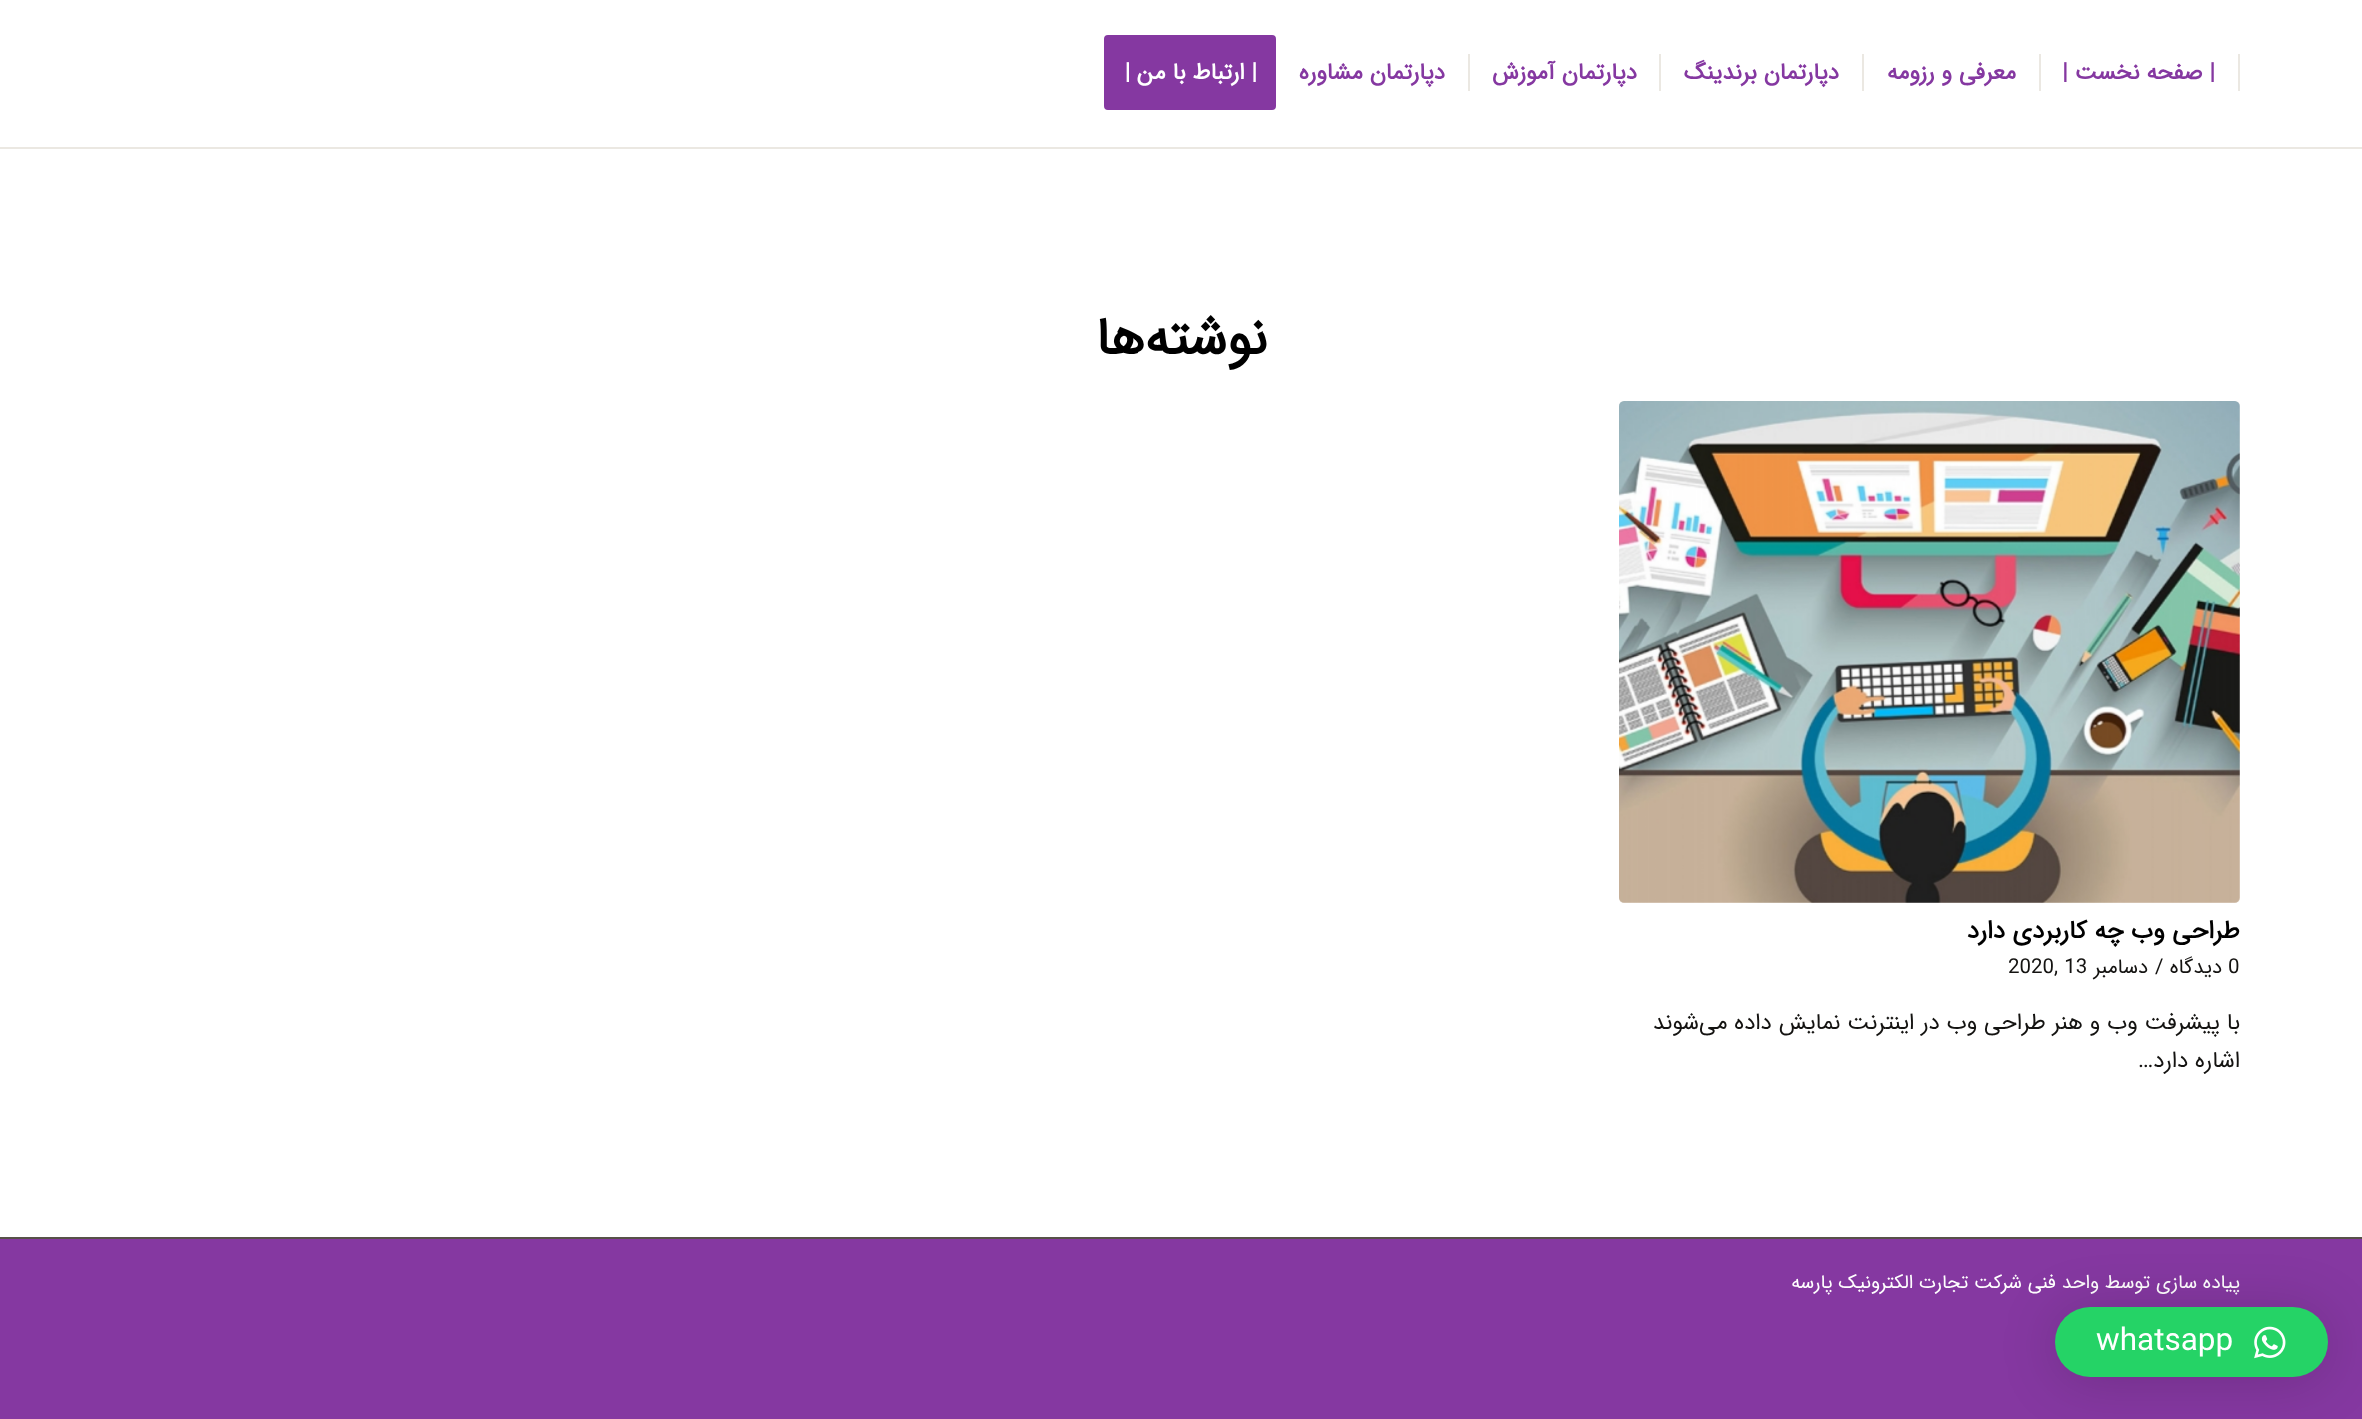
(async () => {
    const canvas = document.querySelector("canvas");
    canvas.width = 2362;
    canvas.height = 1419;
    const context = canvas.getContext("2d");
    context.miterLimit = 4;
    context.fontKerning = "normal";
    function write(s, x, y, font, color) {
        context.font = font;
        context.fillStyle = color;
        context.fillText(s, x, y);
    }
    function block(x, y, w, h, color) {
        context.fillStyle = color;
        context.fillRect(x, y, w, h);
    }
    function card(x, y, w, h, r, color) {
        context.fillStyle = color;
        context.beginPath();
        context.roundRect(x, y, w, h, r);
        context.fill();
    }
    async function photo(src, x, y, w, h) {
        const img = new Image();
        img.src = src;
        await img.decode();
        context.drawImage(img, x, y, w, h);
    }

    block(0, 0, 2362, 1419, "rgb(133, 56, 161)");
    block(0, 0, 2362, 147, "rgb(255, 255, 255)");
    block(0, 147, 2362, 2, "rgb(235, 232, 226)");
    context.direction = "rtl";
    write("| صفحه نخست |", 2215, 79, "bold 22.75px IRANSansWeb", "rgb(133, 56, 161)");
    block(2238, 54, 2, 37, "rgb(235, 232, 226)");
    write("معرفی و رزومه", 2016, 79, "bold 22.75px IRANSansWeb", "rgb(133, 56, 161)");
    block(2039, 54, 2, 37, "rgb(235, 232, 226)");
    write("دپارتمان برندینگ", 1839, 79, "bold 22.75px IRANSansWeb", "rgb(133, 56, 161)");
    block(1862, 54, 2, 37, "rgb(235, 232, 226)");
    write("دپارتمان آموزش", 1637, 79, "bold 22.75px IRANSansWeb", "rgb(133, 56, 161)");
    block(1659, 54, 2, 37, "rgb(235, 232, 226)");
    write("دپارتمان مشاوره", 1445, 79, "bold 22.75px IRANSansWeb", "rgb(133, 56, 161)");
    block(1468, 54, 2, 37, "rgb(235, 232, 226)");
    context.fillStyle = "rgb(133, 56, 161)";
    context.beginPath();
    context.roundRect(1106, 37, 168, 71, 2);
    context.fill();
    context.strokeStyle = "rgb(133, 56, 161)";
    context.lineWidth = 4;
    context.stroke();
    write("| ارتباط با من |", 1257, 79, "bold 22.75px IRANSansWeb", "rgb(255, 255, 255)");
    block(0, 149, 2362, 1088, "rgb(255, 255, 255)");
    write("نوشته‌ها", 1267, 354, "bold 52.5px IRANSansWeb", "rgb(0, 0, 0)");
    card(1619, 401, 621, 502, 5, "rgb(248, 246, 242)");
    await photo("media/1.png", 1619, 401, 621, 502);
    write("طراحی وب چه کاربردی دارد", 2240, 938, "bold 25px IRANSansWeb", "rgb(0, 0, 0)");
    context.direction = "ltr";
    write("0", 2228, 973, "20.5px IRANSansWeb", "rgb(20, 19, 17)");
    context.direction = "rtl";
    write("دیدگاه", 2222, 973, "20.5px IRANSansWeb", "rgb(20, 19, 17)");
    context.direction = "ltr";
    write("/", 2155, 973, "20.5px IRANSansWeb", "rgb(20, 19, 17)");
    context.direction = "rtl";
    write("دسامبر", 2148, 973, "20.5px IRANSansWeb", "rgb(20, 19, 17)");
    context.direction = "ltr";
    write("2020, 13", 2008, 973, "20.5px IRANSansWeb", "rgb(20, 19, 17)");
    context.direction = "rtl";
    write("با پیشرفت وب و هنر طراحی وب در اینترنت نمایش داده می‌شوند", 2240, 1029, "22.75px IRANSansWeb", "rgb(20, 19, 17)");
    write("اشاره دارد…", 2240, 1067, "22.75px IRANSansWeb", "rgb(20, 19, 17)");
    block(0, 1237, 2362, 2, "rgb(87, 81, 73)");
    write("پیاده سازی توسط واحد فنی شرکت تجارت الکترونیک پارسه", 2240, 1288, "19.25px IRANSansWeb", "rgb(255, 255, 255)");
    context.fillStyle = "rgba(0, 0, 0, 0.16)";
    context.filter = "blur(28px)";
    context.beginPath();
    context.roundRect(2055, 1311, 273, 70, 35);
    context.fill();
    context.filter = "none";
    card(2055, 1307, 273, 70, 35, "rgb(37, 211, 102)");
    await photo("media/2.png", 2254, 1326, 32, 33);
    context.direction = "ltr";
    write("whatsapp", 2096, 1350, "31.5px IRANSansWeb", "rgb(255, 255, 255)");
})();
